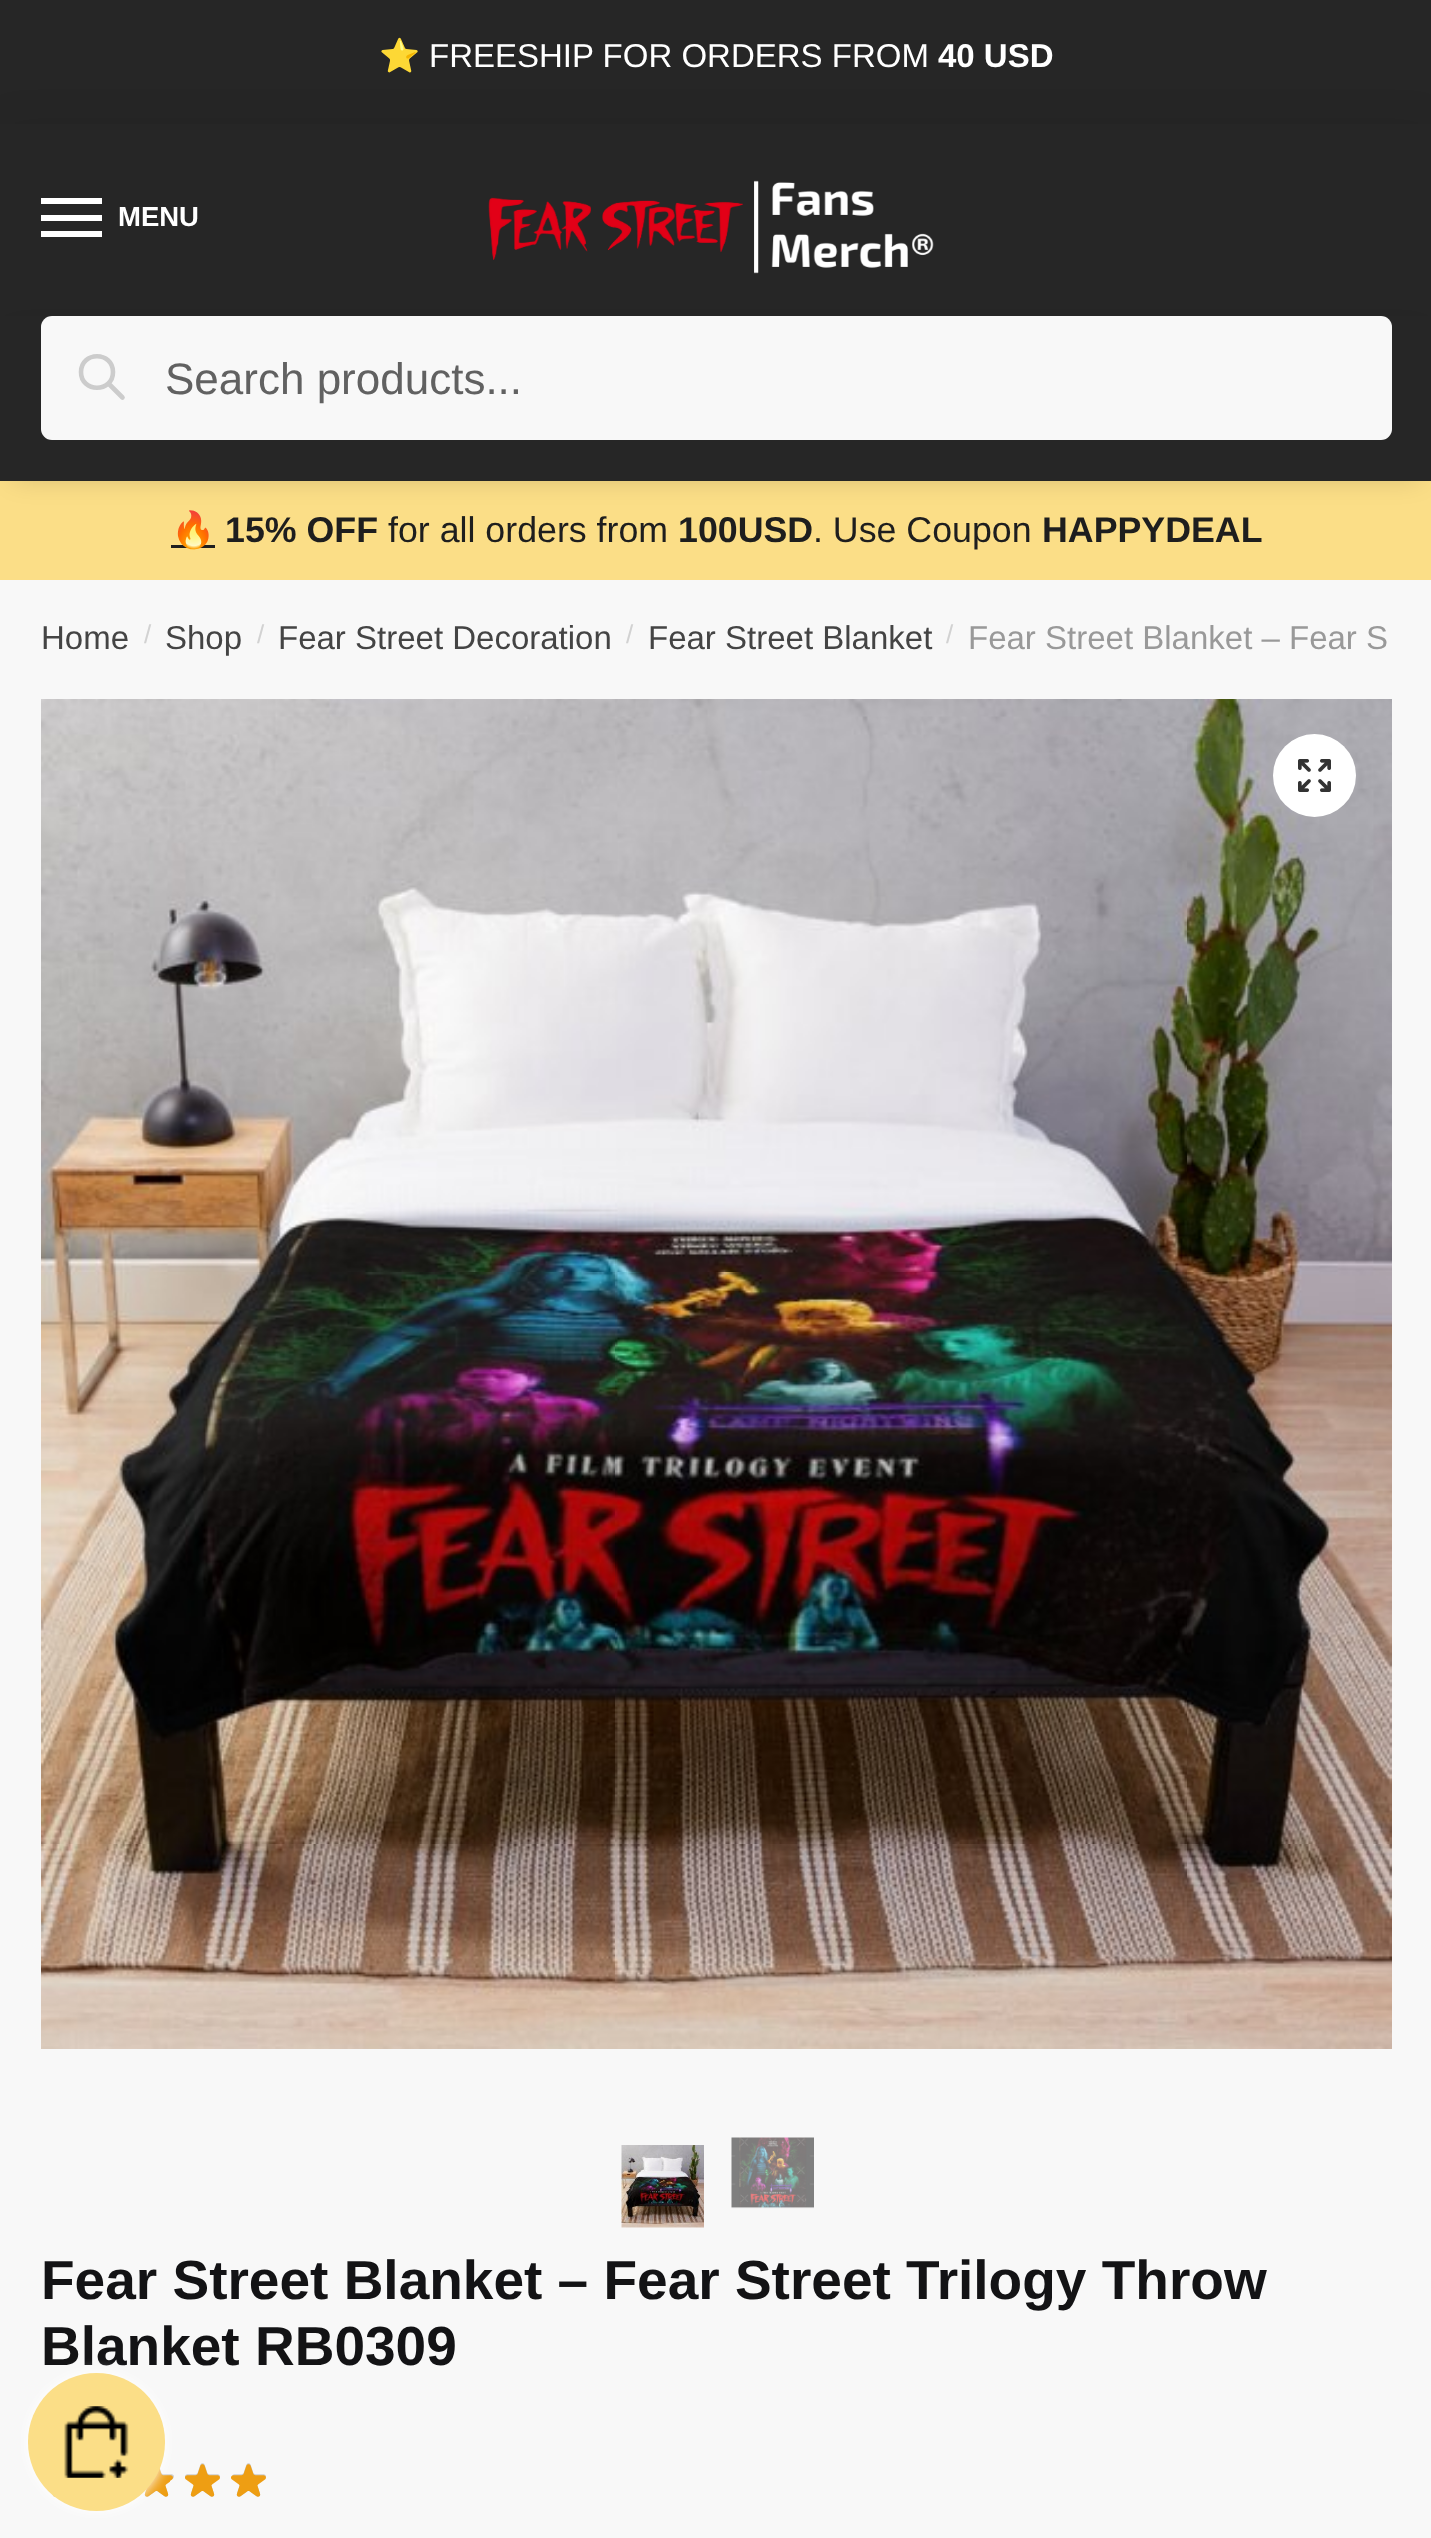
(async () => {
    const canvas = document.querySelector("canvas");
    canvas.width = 1431;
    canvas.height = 2538;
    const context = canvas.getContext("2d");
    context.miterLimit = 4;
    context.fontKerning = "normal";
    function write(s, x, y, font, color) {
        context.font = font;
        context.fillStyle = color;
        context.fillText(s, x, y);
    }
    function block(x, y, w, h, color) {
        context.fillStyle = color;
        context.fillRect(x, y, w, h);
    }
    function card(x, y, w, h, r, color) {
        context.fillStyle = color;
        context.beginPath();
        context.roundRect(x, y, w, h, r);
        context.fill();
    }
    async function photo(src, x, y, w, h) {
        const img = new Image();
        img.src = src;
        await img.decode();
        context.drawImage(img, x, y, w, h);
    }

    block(0, 0, 1431, 2538, "rgb(251, 222, 135)");
    block(0, 0, 1431, 124, "rgb(38, 38, 38)");
    write("⭐", 379, 67, "33px Noto Color Emoji", "rgb(255, 255, 255)");
    write("FREESHIP FOR ORDERS FROM", 429, 67, "33px Liberation Sans", "rgb(255, 255, 255)");
    write("40 USD", 938, 67, "bold 33px Liberation Sans", "rgb(255, 255, 255)");
    context.fillStyle = "rgba(0, 0, 0, 0.08)";
    context.filter = "blur(20.5px)";
    context.beginPath();
    context.rect(0, 127, 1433, 192);
    context.fill();
    context.filter = "none";
    block(0, 124, 1431, 192, "rgb(38, 38, 38)");
    block(41, 198, 61, 6, "rgb(255, 255, 255)");
    block(41, 215, 61, 6, "rgb(255, 255, 255)");
    write("MENU", 118, 226, "bold 27.5px Liberation Sans", "rgb(255, 255, 255)");
    block(41, 231, 61, 6, "rgb(255, 255, 255)");
    await photo("media/1.png", 488, 180, 446, 94);
    context.fillStyle = "rgba(0, 0, 0, 0.18)";
    context.filter = "blur(14px)";
    context.beginPath();
    context.rect(14, 338, 1405, 138);
    context.fill();
    context.filter = "none";
    block(0, 316, 1431, 165, "rgb(38, 38, 38)");
    card(41, 316, 1351, 124, 11, "rgb(248, 248, 248)");
    context.beginPath();
    context.moveTo(122.5, 397.5);
    context.lineTo(108.5, 383.5);
    context.moveTo(113, 372);
    context.bezierCurveTo(113, 393, 81, 393, 81, 372);
    context.bezierCurveTo(81, 351, 113, 351, 113, 372);
    context.closePath();
    context.strokeStyle = "rgb(204, 204, 204)";
    context.lineWidth = 4.6;
    context.lineCap = "round";
    context.lineJoin = "round";
    context.stroke();
    write("Search products...", 165, 394, "44px Liberation Sans", "rgb(97, 97, 97)");
    block(171, 545, 44, 3, "rgb(30, 30, 30)");
    write("🔥", 171, 542, "bold 35.75px Noto Color Emoji", "rgb(30, 30, 30)");
    write("15% OFF", 225, 542, "bold 35.75px Liberation Sans", "rgb(30, 30, 30)");
    write("for all orders from", 388, 542, "35.75px Liberation Sans", "rgb(30, 30, 30)");
    write("100USD", 678, 542, "bold 35.75px Liberation Sans", "rgb(30, 30, 30)");
    write(". Use Coupon", 813, 542, "35.75px Liberation Sans", "rgb(30, 30, 30)");
    write("HAPPYDEAL", 1042, 542, "bold 35.75px Liberation Sans", "rgb(30, 30, 30)");
    block(0, 580, 1431, 1958, "rgb(248, 248, 248)");
    write("Home", 41, 649, "33px Liberation Sans", "rgb(68, 68, 68)");
    write("/", 144, 643, "26px Liberation Sans", "rgb(210, 210, 210)");
    write("Shop", 165, 649, "33px Liberation Sans", "rgb(68, 68, 68)");
    write("/", 257, 643, "26px Liberation Sans", "rgb(210, 210, 210)");
    write("Fear Street Decoration", 278, 649, "33px Liberation Sans", "rgb(68, 68, 68)");
    write("/", 626, 643, "26px Liberation Sans", "rgb(210, 210, 210)");
    write("Fear Street Blanket", 648, 649, "33px Liberation Sans", "rgb(68, 68, 68)");
    write("/", 946, 643, "26px Liberation Sans", "rgb(210, 210, 210)");
    write("Fear Street Blanket – Fear S", 968, 649, "33px Liberation Sans", "rgb(153, 153, 153)");
    await photo("media/2.png", 41, 699, 1351, 1350);
    context.fillStyle = "rgb(255, 255, 255)";
    context.beginPath();
    context.arc(1314.5, 775.5, 41.5, 0, Math.PI * 2);
    context.fill();
    await photo("media/3.png", 1298, 759, 33, 33);
    await photo("media/4.png", 621, 2145, 83, 83);
    await photo("media/5.png", 731, 2137, 83, 72);
    write("Fear Street Blanket – Fear Street Trilogy Throw", 41, 2299, "bold 55px Liberation Sans", "rgb(19, 19, 21)");
    write("Blanket RB0309", 41, 2365, "bold 55px Liberation Sans", "rgb(19, 19, 21)");
    await photo("media/6.png", 52, 2463, 214, 34);
    await photo("media/7.png", 52, 2464, 214, 33);
    context.fillStyle = "rgb(255, 255, 255)";
    context.filter = "blur(7px)";
    context.beginPath();
    context.roundRect(28, 2373, 137, 138, 68.5);
    context.fill();
    context.filter = "none";
    card(28, 2373, 137, 138, 68.5, "rgb(251, 222, 135)");
    await photo("media/8.png", 64, 2406, 65, 72);
})();
